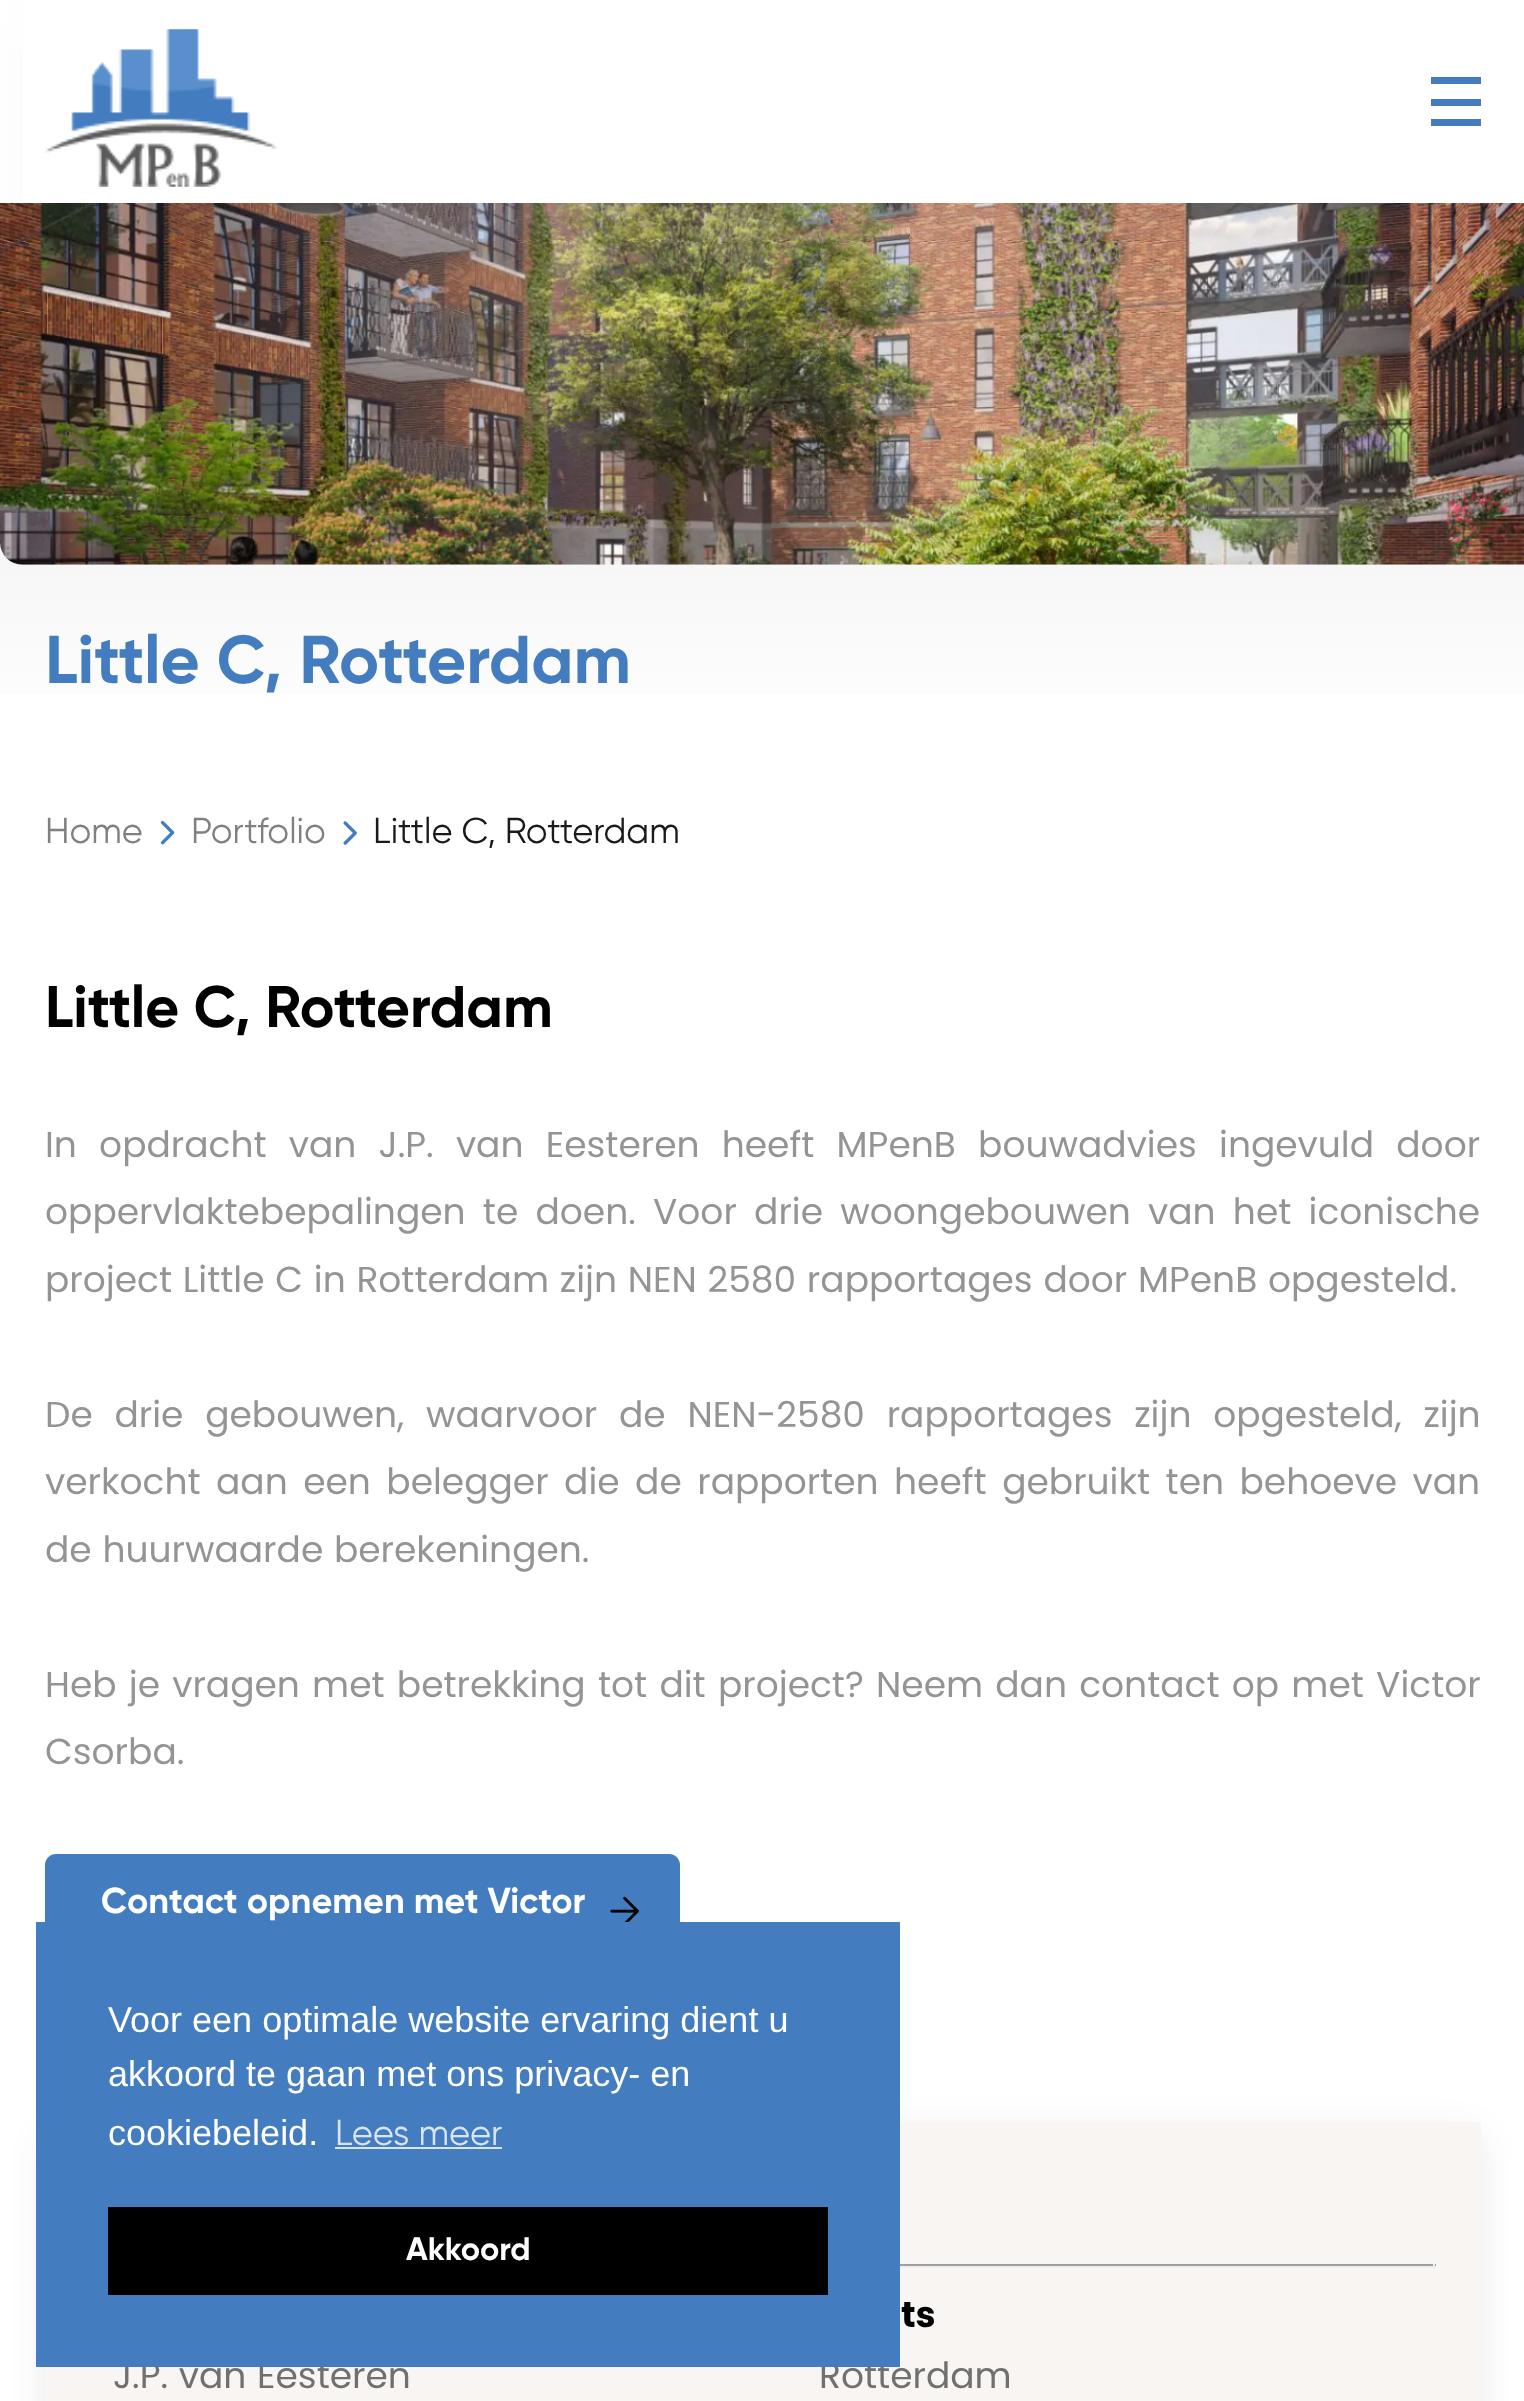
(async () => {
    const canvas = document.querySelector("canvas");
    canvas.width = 1524;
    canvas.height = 2401;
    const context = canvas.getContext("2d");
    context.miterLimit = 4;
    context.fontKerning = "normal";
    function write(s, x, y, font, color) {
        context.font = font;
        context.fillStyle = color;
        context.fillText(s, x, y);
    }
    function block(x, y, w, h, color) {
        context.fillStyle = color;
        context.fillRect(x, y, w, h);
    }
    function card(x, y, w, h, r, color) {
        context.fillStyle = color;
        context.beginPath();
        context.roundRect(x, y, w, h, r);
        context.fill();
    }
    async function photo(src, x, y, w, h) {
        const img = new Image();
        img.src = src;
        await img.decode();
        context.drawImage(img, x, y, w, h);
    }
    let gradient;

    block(0, 0, 1524, 2401, "rgb(255, 255, 255)");
    gradient = context.createLinearGradient(763, 196, 763, 754);
    gradient.addColorStop(0.58, "rgb(245, 245, 245)");
    gradient.addColorStop(1, "rgb(255, 255, 255)");
    context.fillStyle = gradient;
    context.fillRect(0, 543, 1524, 152);
    await photo("media/2.png", 0, 203, 1524, 362);
    context.fillStyle = "rgba(3, 27, 90, 0.05)";
    context.filter = "blur(34px)";
    context.beginPath();
    context.rect(50, 23, 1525, 202);
    context.fill();
    context.filter = "none";
    block(23, 0, 1501, 203, "rgb(255, 255, 255)");
    await photo("media/1.png", 45, 29, 232, 158);
    block(1431, 77, 50, 7, "rgb(67, 125, 191)");
    block(1431, 99, 50, 7, "rgb(67, 125, 191)");
    block(1431, 119, 50, 7, "rgb(67, 125, 191)");
    write("Little C, Rotterdam", 45, 683, "bold 67.5px Gilroy", "rgb(67, 125, 191)");
    write("Home", 45, 843, "36px Gilroy", "rgb(128, 128, 128)");
    await photo("media/3.png", 160, 820, 15, 25);
    write("Portfolio", 191, 843, "36px Gilroy", "rgb(128, 128, 128)");
    await photo("media/4.png", 343, 821, 14, 24);
    write("Little C, Rotterdam", 373, 843, "36px Gilroy", "rgb(26, 26, 26)");
    write("Little C, Rotterdam", 45, 1027, "bold 58.5px Gilroy", "rgb(0, 0, 0)");
    context.wordSpacing = "11.5px";
    write("In opdracht van J.P. van Eesteren heeft MPenB bouwadvies ingevuld door", 45, 1157, "36px Poppins", "rgb(148, 148, 148)");
    context.wordSpacing = "6.5px";
    write("oppervlaktebepalingen te doen. Voor drie woongebouwen van het iconische", 45, 1224, "36px Poppins", "rgb(148, 148, 148)");
    context.wordSpacing = "0px";
    write("project Little C in Rotterdam zijn NEN 2580 rapportages door MPenB opgesteld.", 45, 1292, "36px Poppins", "rgb(148, 148, 148)");
    context.wordSpacing = "11px";
    write("De drie gebouwen, waarvoor de NEN-2580 rapportages zijn opgesteld, zijn", 45, 1427, "36px Poppins", "rgb(148, 148, 148)");
    context.wordSpacing = "4.75px";
    write("verkocht aan een belegger die de rapporten heeft gebruikt ten behoeve van", 45, 1494, "36px Poppins", "rgb(148, 148, 148)");
    context.wordSpacing = "0px";
    write("de huurwaarde berekeningen.", 45, 1562, "36px Poppins", "rgb(148, 148, 148)");
    context.wordSpacing = "1.5px";
    write("Heb je vragen met betrekking tot dit project? Neem dan contact op met Victor", 45, 1697, "36px Poppins", "rgb(148, 148, 148)");
    context.wordSpacing = "0px";
    write("Csorba.", 45, 1764, "36px Poppins", "rgb(148, 148, 148)");
    card(45, 1854, 635, 99, 11, "rgb(67, 125, 191)");
    write("Contact opnemen met Victor", 101, 1913, "bold 36px Gilroy", "rgb(255, 255, 255)");
    await photo("media/5.png", 610, 1896, 29, 26);
    context.fillStyle = "rgba(37, 37, 37, 0.1)";
    context.filter = "blur(17px)";
    context.beginPath();
    context.roundRect(45, 2131, 1436, 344, 23);
    context.fill();
    context.filter = "none";
    block(45, 2122, 1436, 279, "rgb(248, 245, 243)");
    block(900, 2264, 536, 2, "rgb(159, 159, 159)");
    block(1433, 2264, 2, 5, "rgb(238, 238, 238)");
    block(900, 2266, 536, 2, "rgb(238, 238, 238)");
    write("J.P. van Eesteren", 113, 2388, "36px Poppins", "rgb(112, 112, 112)");
    write("ts", 901, 2327, "bold 36px Poppins", "rgb(0, 0, 0)");
    write("Rotterdam", 819, 2388, "36px Poppins", "rgb(112, 112, 112)");
    block(36, 1922, 864, 445, "rgb(67, 125, 191)");
    write("Voor een optimale website ervaring dient u", 108, 2032, "36px Liberation Sans", "rgb(255, 255, 255)");
    write("akkoord te gaan met ons privacy- en", 108, 2086, "36px Liberation Sans", "rgb(255, 255, 255)");
    write("cookiebeleid.", 108, 2145, "36px Liberation Sans", "rgb(255, 255, 255)");
    write("Lees meer", 335, 2145, "36px Gilroy", "rgb(217, 229, 242)");
    block(335, 2147, 167, 2, "rgb(217, 229, 242)");
    block(108, 2207, 720, 88, "rgb(0, 0, 0)");
    write("Akkoord", 406, 2260, "bold 32.5px Gilroy", "rgb(255, 255, 255)");
})();
